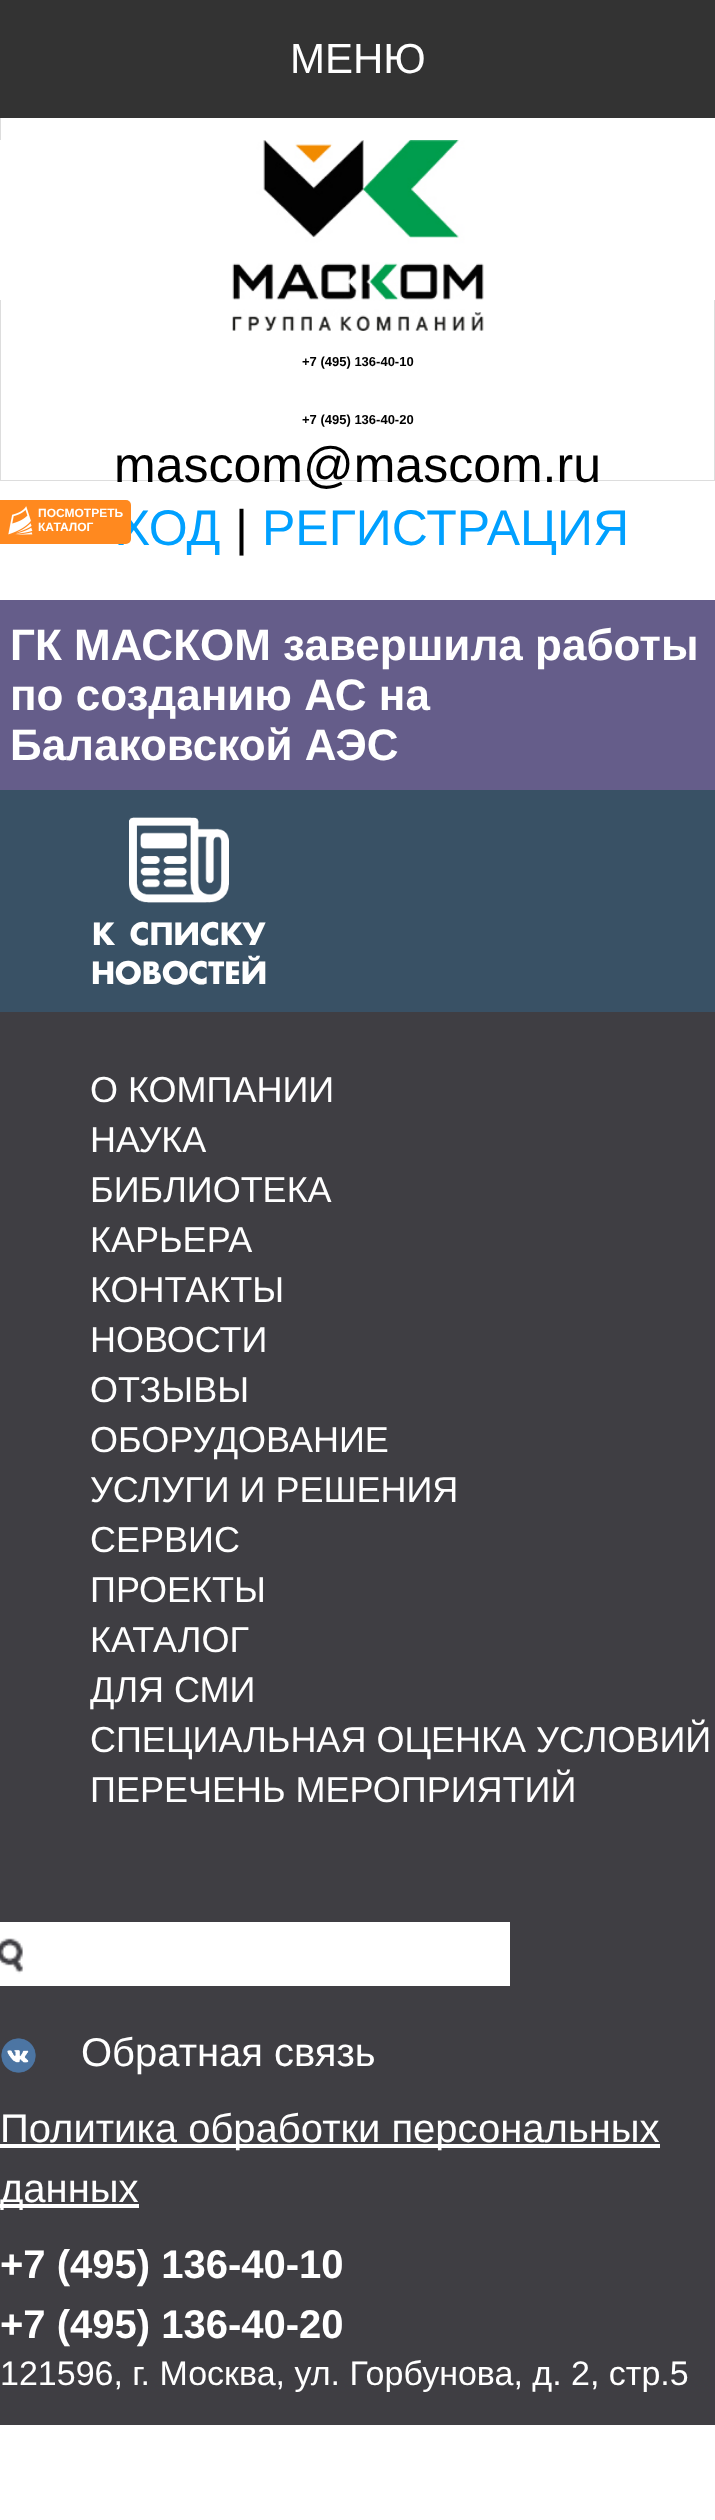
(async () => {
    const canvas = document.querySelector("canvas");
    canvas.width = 715;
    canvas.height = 2520;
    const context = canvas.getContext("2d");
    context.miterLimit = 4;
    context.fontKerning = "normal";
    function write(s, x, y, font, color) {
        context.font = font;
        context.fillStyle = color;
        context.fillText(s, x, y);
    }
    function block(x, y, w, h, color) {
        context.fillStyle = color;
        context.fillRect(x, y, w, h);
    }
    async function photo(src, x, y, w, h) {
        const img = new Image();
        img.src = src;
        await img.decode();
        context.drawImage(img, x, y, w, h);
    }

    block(0, 0, 715, 2520, "rgb(255, 255, 255)");
    block(0, 0, 715, 118, "rgb(51, 51, 51)");
    write("МЕНЮ", 290, 73, "42px Liberation Sans", "rgb(255, 255, 255)");
    block(0, 118, 1, 22, "rgb(221, 221, 221)");
    await photo("media/1.png", 232, 140, 252, 191);
    block(714, 300, 1, 181, "rgb(221, 221, 221)");
    block(0, 480, 715, 1, "rgb(221, 221, 221)");
    block(0, 300, 1, 181, "rgb(221, 221, 221)");
    write("+7 (495) 136-40-10", 302, 366, "bold 13px Liberation Sans", "rgb(0, 0, 0)");
    write("+7 (495) 136-40-20", 302, 424, "bold 13px Liberation Sans", "rgb(0, 0, 0)");
    write("mascom@mascom.ru", 114, 482, "50px Liberation Sans", "rgb(0, 0, 0)");
    write("ХОД", 117, 545, "50px Liberation Sans", "rgb(0, 160, 255)");
    write("|", 235, 545, "50px Liberation Sans", "rgb(0, 0, 0)");
    write("РЕГИСТРАЦИЯ", 262, 545, "50px Liberation Sans", "rgb(0, 160, 255)");
    block(0, 600, 715, 190, "rgb(101, 93, 138)");
    write("ГК МАСКОМ завершила работы", 10, 660, "bold 44px Liberation Sans", "rgb(255, 255, 255)");
    write("по созданию АС на", 10, 710, "bold 44px Liberation Sans", "rgb(255, 255, 255)");
    write("Балаковской АЭС", 10, 760, "bold 44px Liberation Sans", "rgb(255, 255, 255)");
    block(0, 790, 715, 222, "rgb(57, 81, 101)");
    await photo("media/2.png", 129, 817, 100, 86);
    write("К СПИСКУ", 92, 945, "bold 30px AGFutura", "rgb(255, 255, 255)");
    write("НОВОСТЕЙ", 91, 984, "bold 30px AGFutura", "rgb(255, 255, 255)");
    block(0, 1012, 715, 1413, "rgb(63, 62, 67)");
    write("О КОМПАНИИ", 90, 1102, "36px Liberation Sans", "rgb(255, 255, 255)");
    write("НАУКА", 90, 1152, "36px Liberation Sans", "rgb(255, 255, 255)");
    write("БИБЛИОТЕКА", 90, 1202, "36px Liberation Sans", "rgb(255, 255, 255)");
    write("КАРЬЕРА", 90, 1252, "36px Liberation Sans", "rgb(255, 255, 255)");
    write("КОНТАКТЫ", 90, 1302, "36px Liberation Sans", "rgb(255, 255, 255)");
    write("НОВОСТИ", 90, 1352, "36px Liberation Sans", "rgb(255, 255, 255)");
    write("ОТЗЫВЫ", 90, 1402, "36px Liberation Sans", "rgb(255, 255, 255)");
    write("ОБОРУДОВАНИЕ", 90, 1452, "36px Liberation Sans", "rgb(255, 255, 255)");
    write("УСЛУГИ И РЕШЕНИЯ", 90, 1502, "36px Liberation Sans", "rgb(255, 255, 255)");
    write("СЕРВИС", 90, 1552, "36px Liberation Sans", "rgb(255, 255, 255)");
    write("ПРОЕКТЫ", 90, 1602, "36px Liberation Sans", "rgb(255, 255, 255)");
    write("КАТАЛОГ", 90, 1652, "36px Liberation Sans", "rgb(255, 255, 255)");
    write("ДЛЯ СМИ", 90, 1702, "36px Liberation Sans", "rgb(255, 255, 255)");
    write("СПЕЦИАЛЬНАЯ ОЦЕНКА УСЛОВИЙ", 90, 1752, "36px Liberation Sans", "rgb(255, 255, 255)");
    write("ПЕРЕЧЕНЬ МЕРОПРИЯТИЙ", 90, 1802, "36px Liberation Sans", "rgb(255, 255, 255)");
    await photo("media/3.png", 0, 1922, 510, 64);
    await photo("media/4.png", 1, 2038, 35, 35);
    write("Обратная связь", 81, 2066, "40px Liberation Sans", "rgb(255, 255, 255)");
    block(0, 2144, 660, 4, "rgb(255, 255, 255)");
    write("Политика обработки персональных", 0, 2142, "40px Liberation Sans", "rgb(255, 255, 255)");
    block(0, 2204, 139, 4, "rgb(255, 255, 255)");
    write("данных", 0, 2202, "40px Liberation Sans", "rgb(255, 255, 255)");
    write("+7 (495) 136-40-10", 0, 2278, "bold 40px Liberation Sans", "rgb(255, 255, 255)");
    write("+7 (495) 136-40-20", 0, 2338, "bold 40px Liberation Sans", "rgb(255, 255, 255)");
    write("121596, г. Москва, ул. Горбунова, д. 2, стр.5", 0, 2385, "34px Liberation Sans", "rgb(255, 255, 255)");
    context.fillStyle = "rgb(255, 137, 31)";
    context.beginPath();
    context.roundRect(0, 500, 131, 44, [0, 5, 5, 0]);
    context.fill();
    await photo("media/5.png", 8, 506, 25, 29);
    write("ПОСМОТРЕТЬ", 38, 517, "bold 12px Liberation Sans", "rgb(255, 255, 255)");
    write("КАТАЛОГ", 38, 531, "bold 12px Liberation Sans", "rgb(255, 255, 255)");
})();
